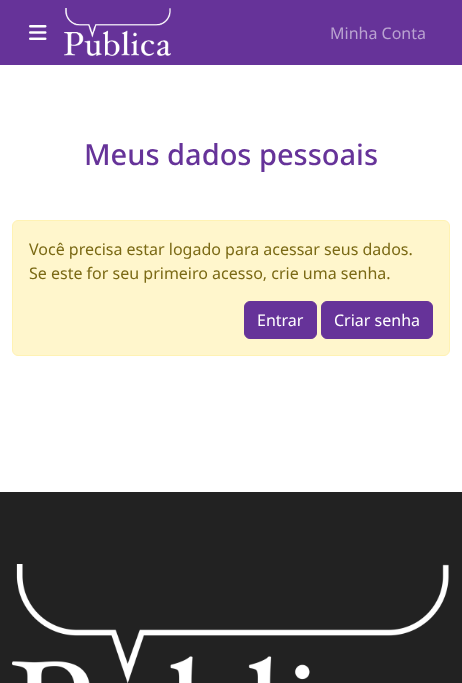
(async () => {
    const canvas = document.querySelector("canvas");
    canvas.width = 462;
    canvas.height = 683;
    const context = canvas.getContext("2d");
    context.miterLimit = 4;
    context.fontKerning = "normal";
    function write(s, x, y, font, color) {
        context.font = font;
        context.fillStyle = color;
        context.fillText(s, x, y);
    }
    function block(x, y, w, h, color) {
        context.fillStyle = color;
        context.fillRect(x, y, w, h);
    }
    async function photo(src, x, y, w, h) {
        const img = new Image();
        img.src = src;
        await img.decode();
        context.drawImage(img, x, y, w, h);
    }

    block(0, 0, 462, 683, "rgb(255, 255, 255)");
    block(0, 0, 462, 65, "rgb(102, 51, 153)");
    await photo("media/1.png", 29, 25, 18, 15);
    await photo("media/2.png", 64, 8, 107, 48);
    write("Minha Conta", 330, 39, "16px Noto Sans", "rgb(186, 163, 209)");
    write("Meus dados pessoais", 84, 165, "500 29px Noto Sans", "rgb(102, 51, 153)");
    context.fillStyle = "rgb(255, 246, 204)";
    context.beginPath();
    context.roundRect(12.5, 220.5, 437, 135, 5.5);
    context.fill();
    context.strokeStyle = "rgb(255, 242, 179)";
    context.stroke();
    write("Você precisa estar logado para acessar seus dados.", 29, 255, "16px Noto Sans", "rgb(122, 105, 20)");
    write("Se este for seu primeiro acesso, crie uma senha.", 29, 279, "16px Noto Sans", "rgb(122, 105, 20)");
    context.fillStyle = "rgb(102, 51, 153)";
    context.beginPath();
    context.roundRect(244.5, 301.5, 72, 37, 5.5);
    context.fill();
    context.strokeStyle = "rgb(102, 51, 153)";
    context.stroke();
    write("Entrar", 257, 326, "16px Noto Sans", "rgb(255, 255, 255)");
    context.fillStyle = "rgb(102, 51, 153)";
    context.beginPath();
    context.roundRect(321.5, 301.5, 111, 37, 5.5);
    context.fill();
    context.stroke();
    write("Criar senha", 334, 326, "16px Noto Sans", "rgb(255, 255, 255)");
    block(0, 492, 462, 191, "rgb(34, 34, 34)");
    await photo("media/3.png", 12, 564, 437, 119);
})();
